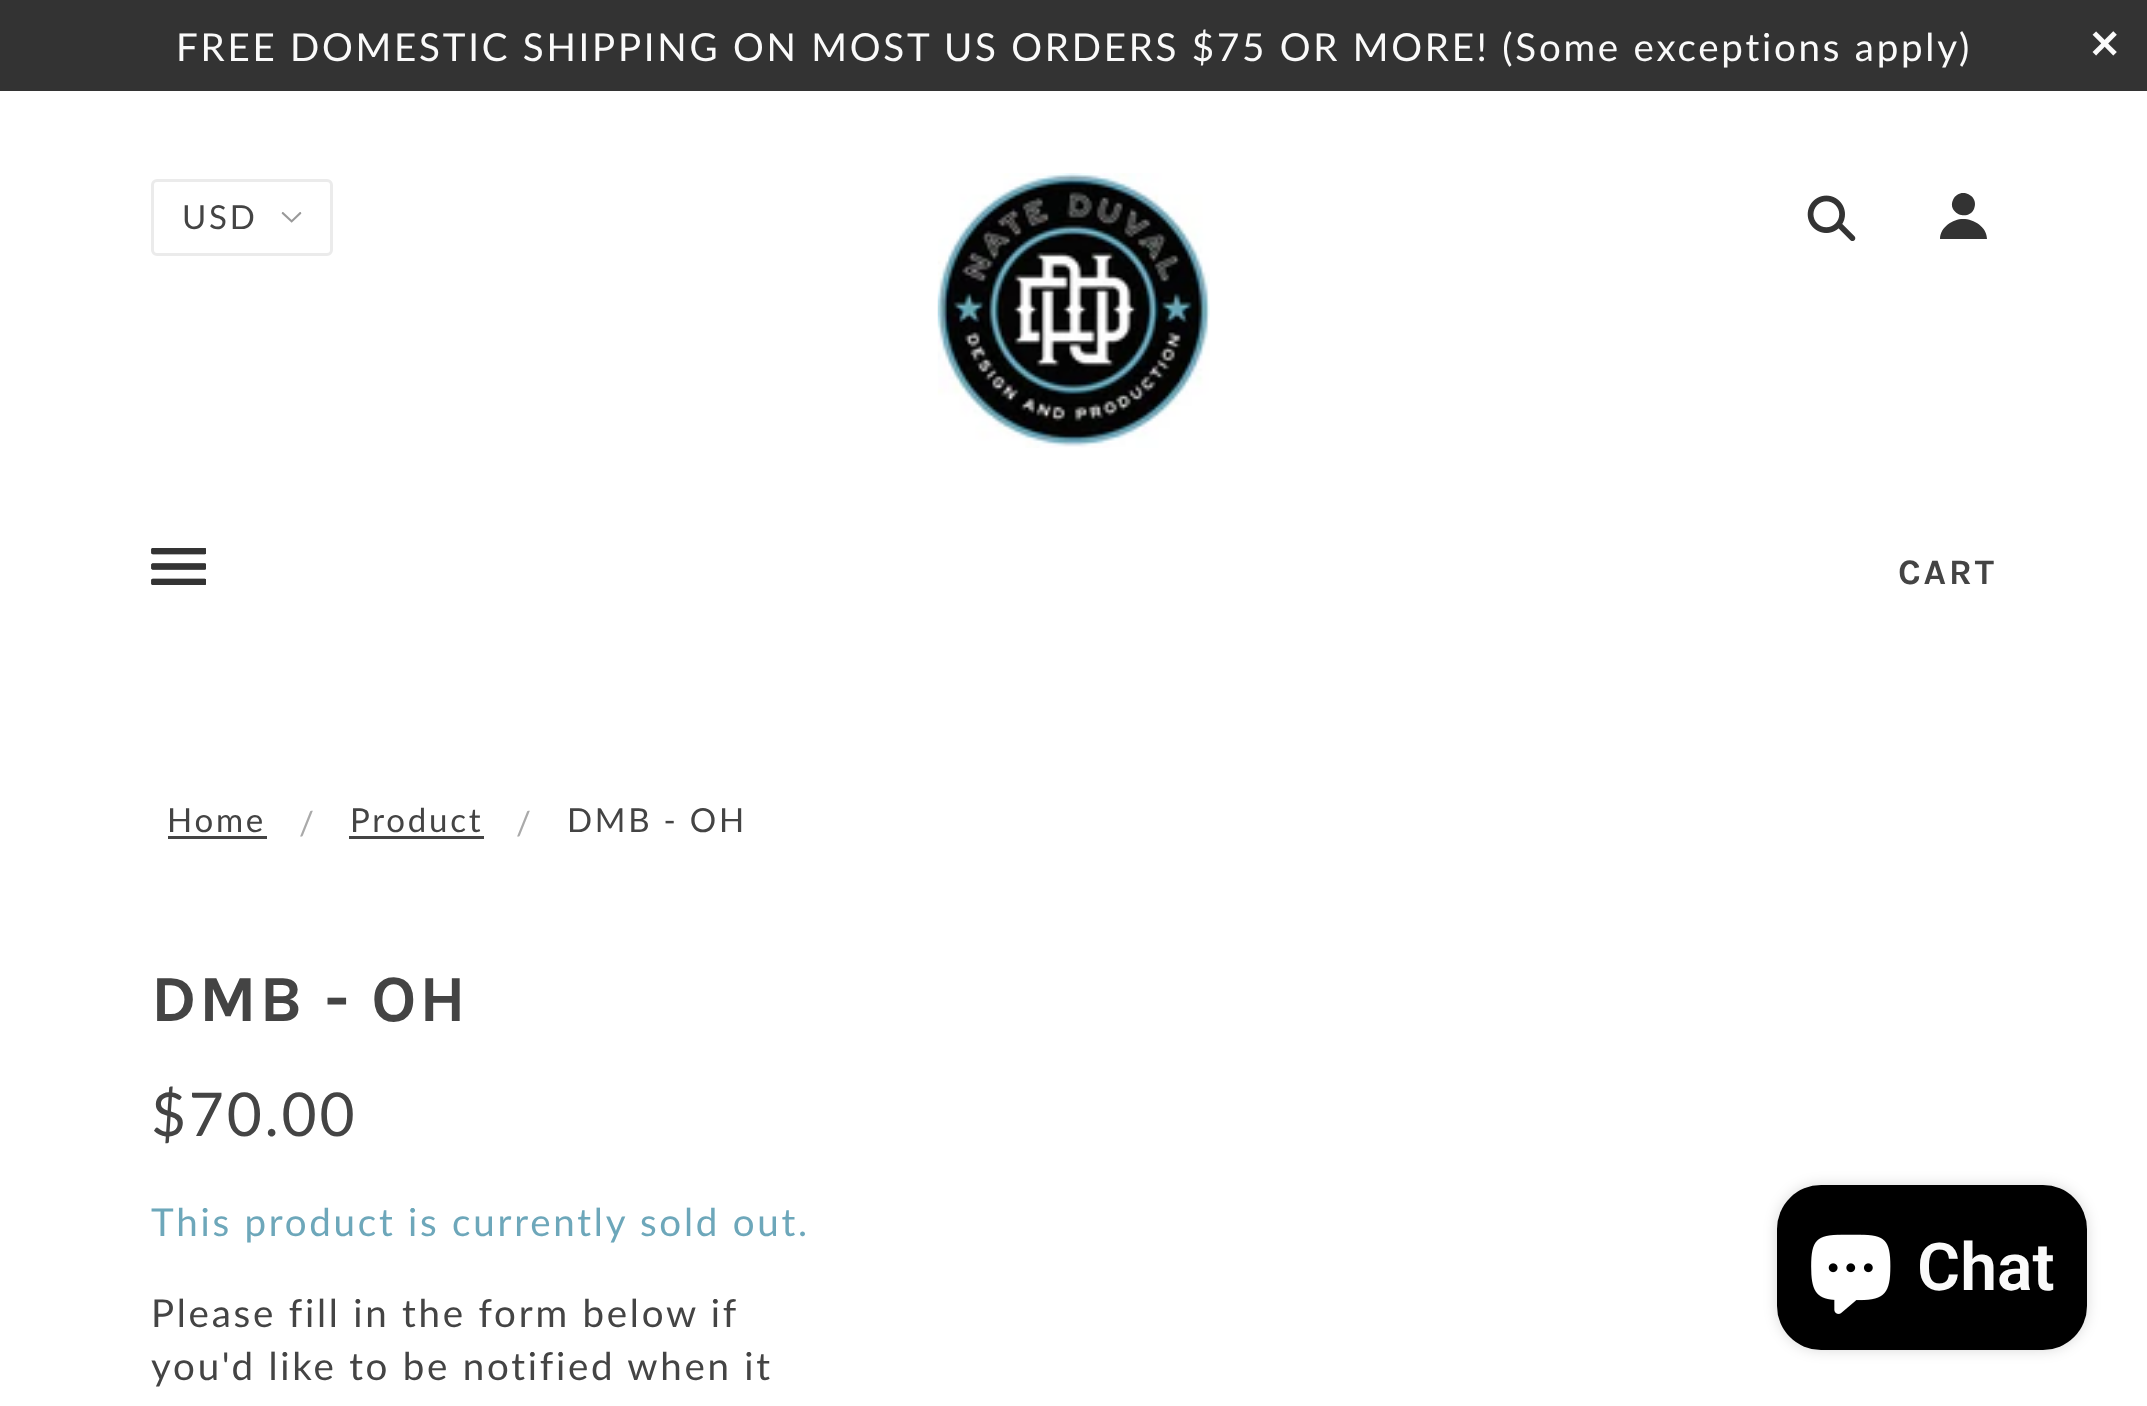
(async () => {
    const canvas = document.querySelector("canvas");
    canvas.width = 2147;
    canvas.height = 1406;
    const context = canvas.getContext("2d");
    context.miterLimit = 4;
    context.fontKerning = "normal";
    function write(s, x, y, font, color) {
        context.font = font;
        context.fillStyle = color;
        context.fillText(s, x, y);
    }
    function block(x, y, w, h, color) {
        context.fillStyle = color;
        context.fillRect(x, y, w, h);
    }
    function card(x, y, w, h, r, color) {
        context.fillStyle = color;
        context.beginPath();
        context.roundRect(x, y, w, h, r);
        context.fill();
    }
    async function photo(src, x, y, w, h) {
        const img = new Image();
        img.src = src;
        await img.decode();
        context.drawImage(img, x, y, w, h);
    }

    block(0, 0, 2147, 1406, "rgb(255, 255, 255)");
    block(0, 0, 2147, 91, "rgb(51, 51, 51)");
    context.letterSpacing = "2.75px";
    write("FREE DOMESTIC SHIPPING ON MOST US ORDERS $75 OR MORE! (Some exceptions apply)", 176, 61, "38.5px Lato", "rgb(250, 250, 250)");
    context.letterSpacing = "0px";
    write("✕", 2088, 58, "bold 38.5px DejaVu Sans", "rgb(250, 250, 250)");
    await photo("media/1.png", 281, 212, 21, 11);
    context.beginPath();
    context.roundRect(152.5, 180.5, 179, 74, 4.5);
    context.strokeStyle = "rgb(235, 235, 235)";
    context.lineWidth = 3;
    context.stroke();
    context.letterSpacing = "2.75px";
    write("USD", 182, 229, "33px Lato", "rgb(68, 68, 68)");
    await photo("media/2.png", 937, 173, 273, 275);
    await photo("media/3.png", 1807, 195, 49, 46);
    context.fillStyle = "rgb(51, 51, 51)";
    context.beginPath();
    context.moveTo(1963, 219);
    context.bezierCurveTo(1974, 219, 1987, 227, 1987, 239);
    context.lineTo(1940, 239);
    context.bezierCurveTo(1940, 227, 1953, 219, 1963, 219);
    context.closePath();
    context.moveTo(1974, 209);
    context.bezierCurveTo(1968, 222, 1947, 213, 1953, 200);
    context.bezierCurveTo(1959, 186, 1980, 195, 1974, 209);
    context.closePath();
    context.fill();
    await photo("media/4.png", 151, 548, 55, 37);
    write("CART", 1898, 584, "bold 36px Karla", "rgb(68, 68, 68)");
    write("Home", 167, 832, "33px Lato", "rgb(68, 68, 68)");
    block(168, 836, 99, 3, "rgb(68, 68, 68)");
    write("/", 299, 835, "33px Lato", "rgb(170, 170, 170)");
    write("Product", 350, 832, "33px Lato", "rgb(68, 68, 68)");
    block(349, 836, 135, 3, "rgb(68, 68, 68)");
    write("/", 516, 835, "33px Lato", "rgb(170, 170, 170)");
    write("DMB - OH", 567, 832, "33px Lato", "rgb(68, 68, 68)");
    write("DMB - OH", 151, 1021, "bold 66px Karla", "rgb(68, 68, 68)");
    write("$70.00", 151, 1136, "60.5px Lato", "rgb(68, 68, 68)");
    write("This product is currently sold out.", 151, 1236, "38.5px Lato", "rgb(109, 167, 186)");
    write("Please fill in the form below if", 151, 1327, "38.5px Lato", "rgb(68, 68, 68)");
    write("you'd like to be notified when it", 151, 1380, "38.5px Lato", "rgb(68, 68, 68)");
    context.fillStyle = "rgba(0, 0, 0, 0.15)";
    context.filter = "blur(7px)";
    context.beginPath();
    context.roundRect(1777, 1185, 310, 165, 44);
    context.fill();
    context.filter = "none";
    card(1777, 1185, 310, 165, 44, "rgb(0, 0, 0)");
    await photo("media/5.png", 1811, 1234, 80, 80);
    context.letterSpacing = "0px";
    write("Chat", 1917, 1290, "600 66px Roboto", "rgb(250, 250, 250)");
})();
